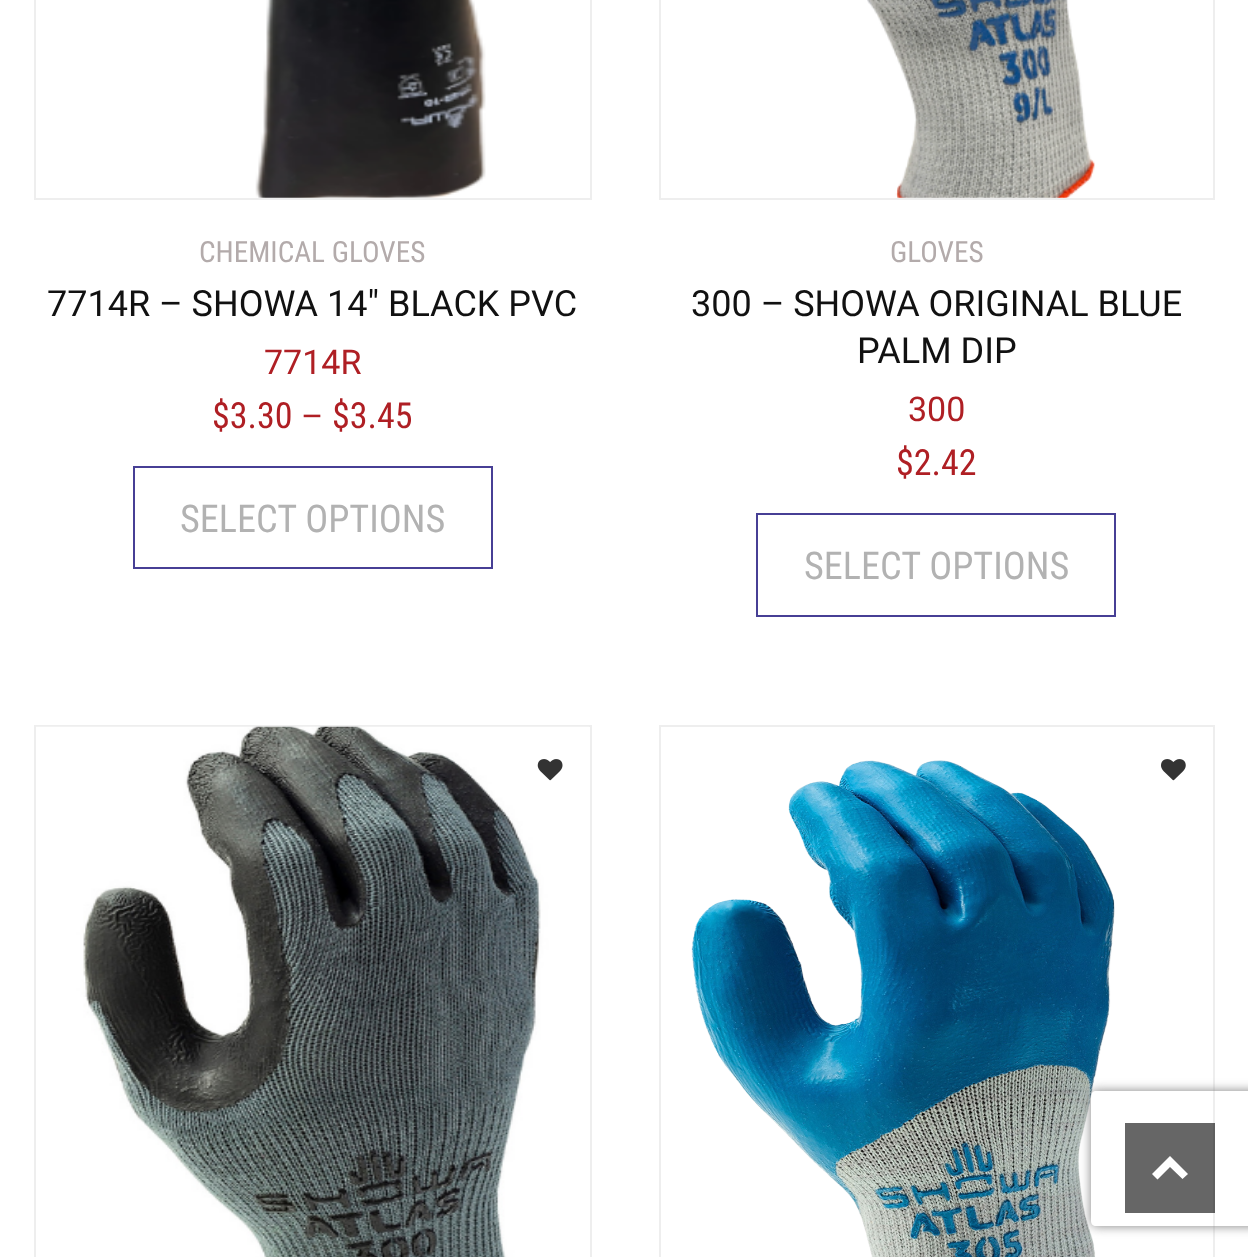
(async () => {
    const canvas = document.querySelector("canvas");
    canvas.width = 1248;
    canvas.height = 1257;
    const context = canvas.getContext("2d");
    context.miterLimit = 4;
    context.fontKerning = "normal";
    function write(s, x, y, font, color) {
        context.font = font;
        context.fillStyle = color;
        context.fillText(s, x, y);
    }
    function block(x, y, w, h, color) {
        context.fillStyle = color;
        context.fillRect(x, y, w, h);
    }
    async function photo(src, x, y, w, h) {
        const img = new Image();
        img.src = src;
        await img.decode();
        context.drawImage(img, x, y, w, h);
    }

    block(0, 0, 1248, 1257, "rgb(255, 255, 255)");
    context.strokeStyle = "rgb(238, 238, 238)";
    context.lineWidth = 2;
    context.strokeRect(35, -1, 556, 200);
    await photo("media/1.png", 255, 0, 231, 198);
    write("CHEMICAL GLOVES", 199, 262, "29.25px Roboto Condensed", "rgb(179, 171, 171)");
    write("7714R – SHOWA 14″ BLACK PVC", 47, 316, "36px Roboto", "rgb(17, 17, 17)");
    write("7714R", 264, 374, "34px Roboto", "rgb(175, 31, 36)");
    write("$3.30", 212, 428, "36px Roboto Condensed", "rgb(175, 31, 36)");
    write("–", 301, 428, "34px Roboto", "rgb(175, 31, 36)");
    write("$3.45", 332, 428, "36px Roboto Condensed", "rgb(175, 31, 36)");
    context.strokeStyle = "rgb(71, 63, 149)";
    context.strokeRect(134, 467, 358, 101);
    write("SELECT OPTIONS", 180, 532, "38.25px Roboto Condensed", "rgb(178, 178, 178)");
    context.strokeStyle = "rgb(238, 238, 238)";
    context.strokeRect(660, -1, 554, 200);
    await photo("media/2.png", 867, 0, 228, 198);
    write("GLOVES", 890, 262, "29.25px Roboto Condensed", "rgb(179, 171, 171)");
    write("300 – SHOWA ORIGINAL BLUE", 691, 316, "36px Roboto", "rgb(17, 17, 17)");
    write("PALM DIP", 857, 363, "36px Roboto", "rgb(17, 17, 17)");
    write("300", 908, 421, "34px Roboto", "rgb(175, 31, 36)");
    write("$2.42", 896, 475, "36px Roboto Condensed", "rgb(175, 31, 36)");
    context.strokeStyle = "rgb(71, 63, 149)";
    context.strokeRect(757, 514, 358, 102);
    write("SELECT OPTIONS", 804, 579, "38.25px Roboto Condensed", "rgb(178, 178, 178)");
    context.strokeStyle = "rgb(238, 238, 238)";
    context.strokeRect(35, 726, 556, 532);
    await photo("media/3.png", 36, 726, 553, 531);
    await photo("media/4.png", 537, 759, 26, 22);
    context.strokeRect(660, 726, 554, 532);
    await photo("media/5.png", 691, 760, 424, 497);
    await photo("media/6.png", 1161, 759, 25, 22);
    context.save();
    context.beginPath();
    context.moveTo(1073, 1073);
    context.lineTo(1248, 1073);
    context.lineTo(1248, 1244);
    context.lineTo(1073, 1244);
    context.closePath();
    context.moveTo(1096, 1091);
    context.lineTo(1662, 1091);
    context.bezierCurveTo(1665, 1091, 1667, 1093, 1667, 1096);
    context.lineTo(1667, 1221);
    context.bezierCurveTo(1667, 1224, 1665, 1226, 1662, 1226);
    context.lineTo(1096, 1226);
    context.bezierCurveTo(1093, 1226, 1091, 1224, 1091, 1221);
    context.lineTo(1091, 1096);
    context.bezierCurveTo(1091, 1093, 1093, 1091, 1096, 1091);
    context.closePath();
    context.clip("evenodd");
    context.fillStyle = "rgb(128, 128, 128)";
    context.filter = "blur(5.5px)";
    context.beginPath();
    context.roundRect(1091, 1091, 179, 135, 5);
    context.fill();
    context.filter = "none";
    context.restore();
    block(1125, 1123, 90, 90, "rgba(0, 0, 0, 0.6)");
    context.fillStyle = "rgb(255, 255, 255)";
    context.beginPath();
    context.moveTo(1170, 1156);
    context.lineTo(1188, 1174);
    context.lineTo(1182.5, 1179);
    context.lineTo(1170, 1167);
    context.lineTo(1157.5, 1179.5);
    context.lineTo(1152, 1174);
    context.closePath();
    context.fill();
})();
